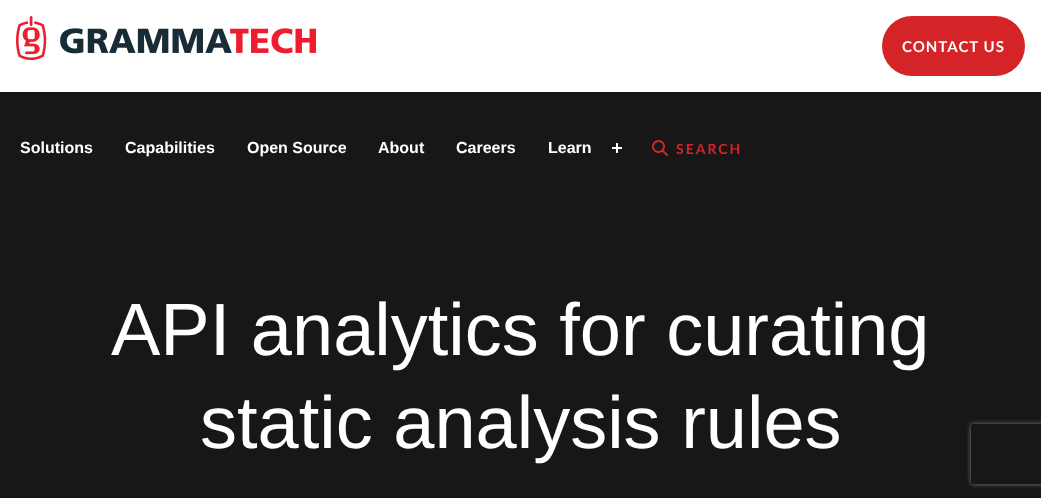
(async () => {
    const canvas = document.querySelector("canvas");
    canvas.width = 1041;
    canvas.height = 498;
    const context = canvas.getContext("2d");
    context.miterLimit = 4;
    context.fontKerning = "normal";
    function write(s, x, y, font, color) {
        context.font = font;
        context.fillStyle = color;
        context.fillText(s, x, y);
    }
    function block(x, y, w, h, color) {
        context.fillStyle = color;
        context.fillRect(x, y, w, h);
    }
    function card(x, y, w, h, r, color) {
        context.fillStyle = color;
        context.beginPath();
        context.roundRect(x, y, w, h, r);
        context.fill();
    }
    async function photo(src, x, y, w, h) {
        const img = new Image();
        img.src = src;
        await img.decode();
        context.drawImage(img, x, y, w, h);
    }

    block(0, 0, 1041, 498, "rgb(255, 255, 255)");
    await photo("media/1.png", 16, 16, 300, 44);
    card(882, 16, 143, 60, 30, "rgb(213, 36, 39)");
    context.letterSpacing = "1px";
    write("CONTACT US", 902, 52, "bold 15px Lato", "rgb(255, 255, 255)");
    block(0, 92, 1041, 406, "rgb(23, 23, 23)");
    context.letterSpacing = "0px";
    write("Solutions", 20, 153, "bold 16px Liberation Sans", "rgb(255, 255, 255)");
    write("Capabilities", 125, 153, "bold 16px Liberation Sans", "rgb(255, 255, 255)");
    write("Open Source", 247, 153, "bold 16px Liberation Sans", "rgb(255, 255, 255)");
    write("About", 378, 153, "bold 16px Liberation Sans", "rgb(255, 255, 255)");
    write("Careers", 456, 153, "bold 16px Liberation Sans", "rgb(255, 255, 255)");
    write("Learn", 548, 153, "bold 16px Liberation Sans", "rgb(255, 255, 255)");
    block(616, 143, 2, 10, "rgb(255, 255, 255)");
    block(612, 147, 10, 2, "rgb(255, 255, 255)");
    await photo("media/2.png", 652, 140, 16, 16);
    context.letterSpacing = "2px";
    write("SEARCH", 676, 154, "bold 14px Lato", "rgb(213, 36, 39)");
    context.letterSpacing = "0px";
    write("API analytics for curating", 111, 355, "74px Liberation Sans", "rgb(255, 255, 255)");
    write("static analysis rules", 200, 448, "74px Liberation Sans", "rgb(255, 255, 255)");
    context.save();
    context.beginPath();
    context.moveTo(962, 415);
    context.lineTo(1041, 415);
    context.lineTo(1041, 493);
    context.lineTo(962, 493);
    context.closePath();
    context.moveTo(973, 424);
    context.lineTo(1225, 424);
    context.bezierCurveTo(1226, 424, 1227, 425, 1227, 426);
    context.lineTo(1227, 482);
    context.bezierCurveTo(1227, 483, 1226, 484, 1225, 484);
    context.lineTo(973, 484);
    context.bezierCurveTo(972, 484, 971, 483, 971, 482);
    context.lineTo(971, 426);
    context.bezierCurveTo(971, 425, 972, 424, 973, 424);
    context.closePath();
    context.clip("evenodd");
    context.fillStyle = "rgb(128, 128, 128)";
    context.filter = "blur(2.5px)";
    context.beginPath();
    context.roundRect(971, 424, 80, 60, 2);
    context.fill();
    context.filter = "none";
    context.restore();
})();
